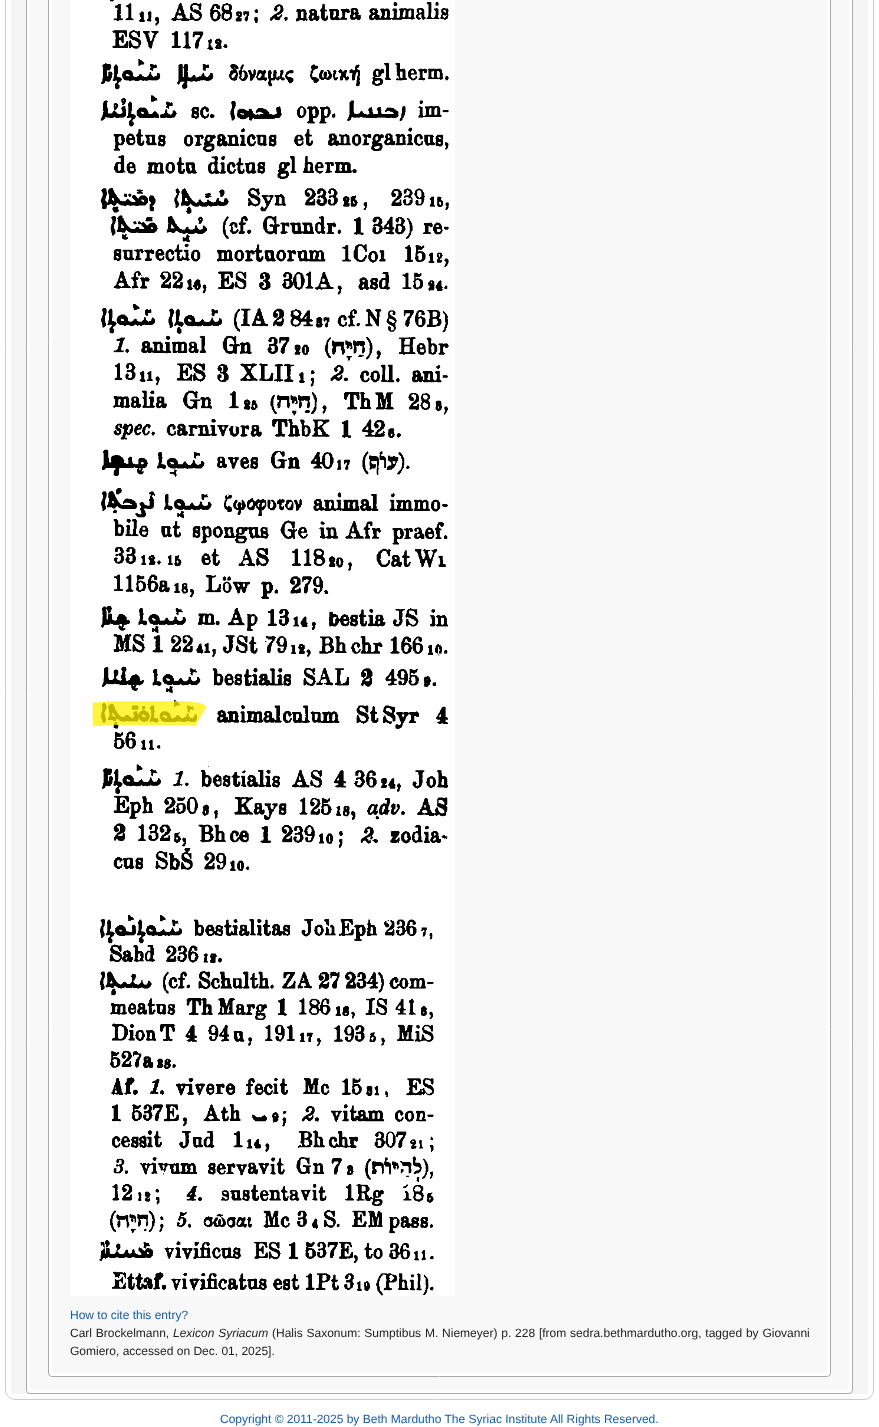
(async () => {
    const canvas = document.querySelector("canvas");
    canvas.width = 879;
    canvas.height = 1427;
    const context = canvas.getContext("2d");
    context.miterLimit = 4;
    context.fontKerning = "normal";
    function write(s, x, y, font, color) {
        context.font = font;
        context.fillStyle = color;
        context.fillText(s, x, y);
    }
    function block(x, y, w, h, color) {
        context.fillStyle = color;
        context.fillRect(x, y, w, h);
    }
    async function photo(src, x, y, w, h) {
        const img = new Image();
        img.src = src;
        await img.decode();
        context.drawImage(img, x, y, w, h);
    }

    block(0, 0, 879, 1427, "rgb(255, 255, 255)");
    context.beginPath();
    context.roundRect(5.5, -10.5, 868, 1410, 9.5);
    context.strokeStyle = "rgb(204, 204, 204)";
    context.stroke();
    block(11, 0, 857, 1394, "rgb(245, 245, 245)");
    context.fillStyle = "rgb(255, 255, 255)";
    context.beginPath();
    context.roundRect(26.5, -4.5, 826, 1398, 3.5);
    context.fill();
    context.strokeStyle = "rgb(170, 170, 170)";
    context.stroke();
    context.fillStyle = "rgb(248, 248, 248)";
    context.beginPath();
    context.moveTo(30, -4);
    context.lineTo(849, -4);
    context.lineTo(849, 1386);
    context.bezierCurveTo(849, 1388, 847, 1390, 845, 1390);
    context.lineTo(34, 1390);
    context.bezierCurveTo(32, 1390, 30, 1388, 30, 1386);
    context.closePath();
    context.fill();
    context.fillStyle = "rgb(255, 255, 255)";
    context.beginPath();
    context.roundRect(48.5, -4.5, 782, 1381, 3.5);
    context.fill();
    context.stroke();
    context.fillStyle = "rgb(248, 248, 248)";
    context.beginPath();
    context.moveTo(52, -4);
    context.lineTo(827, -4);
    context.lineTo(827, 1369);
    context.bezierCurveTo(827, 1371, 825, 1373, 823, 1373);
    context.lineTo(56, 1373);
    context.bezierCurveTo(54, 1373, 52, 1371, 52, 1369);
    context.closePath();
    context.fill();
    await photo("media/1.png", 70, 0, 385, 893);
    await photo("media/2.png", 70, 893, 385, 403);
    write("How to cite this entry?", 70, 1319, "12px Liberation Sans", "rgb(19, 92, 174)");
    context.wordSpacing = "0.5px";
    write("Carl Brockelmann,", 70, 1337, "12px Liberation Sans", "rgb(34, 34, 34)");
    write("Lexicon Syriacum", 173, 1337, "italic 12px Liberation Sans", "rgb(34, 34, 34)");
    write("(Halis Saxonum: Sumptibus M. Niemeyer) p. 228 [from sedra.bethmardutho.org, tagged by Giovanni", 272, 1337, "12px Liberation Sans", "rgb(34, 34, 34)");
    context.wordSpacing = "0px";
    write("Gomiero, accessed on Dec. 01, 2025].", 70, 1355, "12px Liberation Sans", "rgb(34, 34, 34)");
    write("Copyright © 2011-2025 by Beth Mardutho The Syriac Institute All Rights Reserved.", 220, 1423, "12px Liberation Sans", "rgb(19, 92, 174)");
})();
